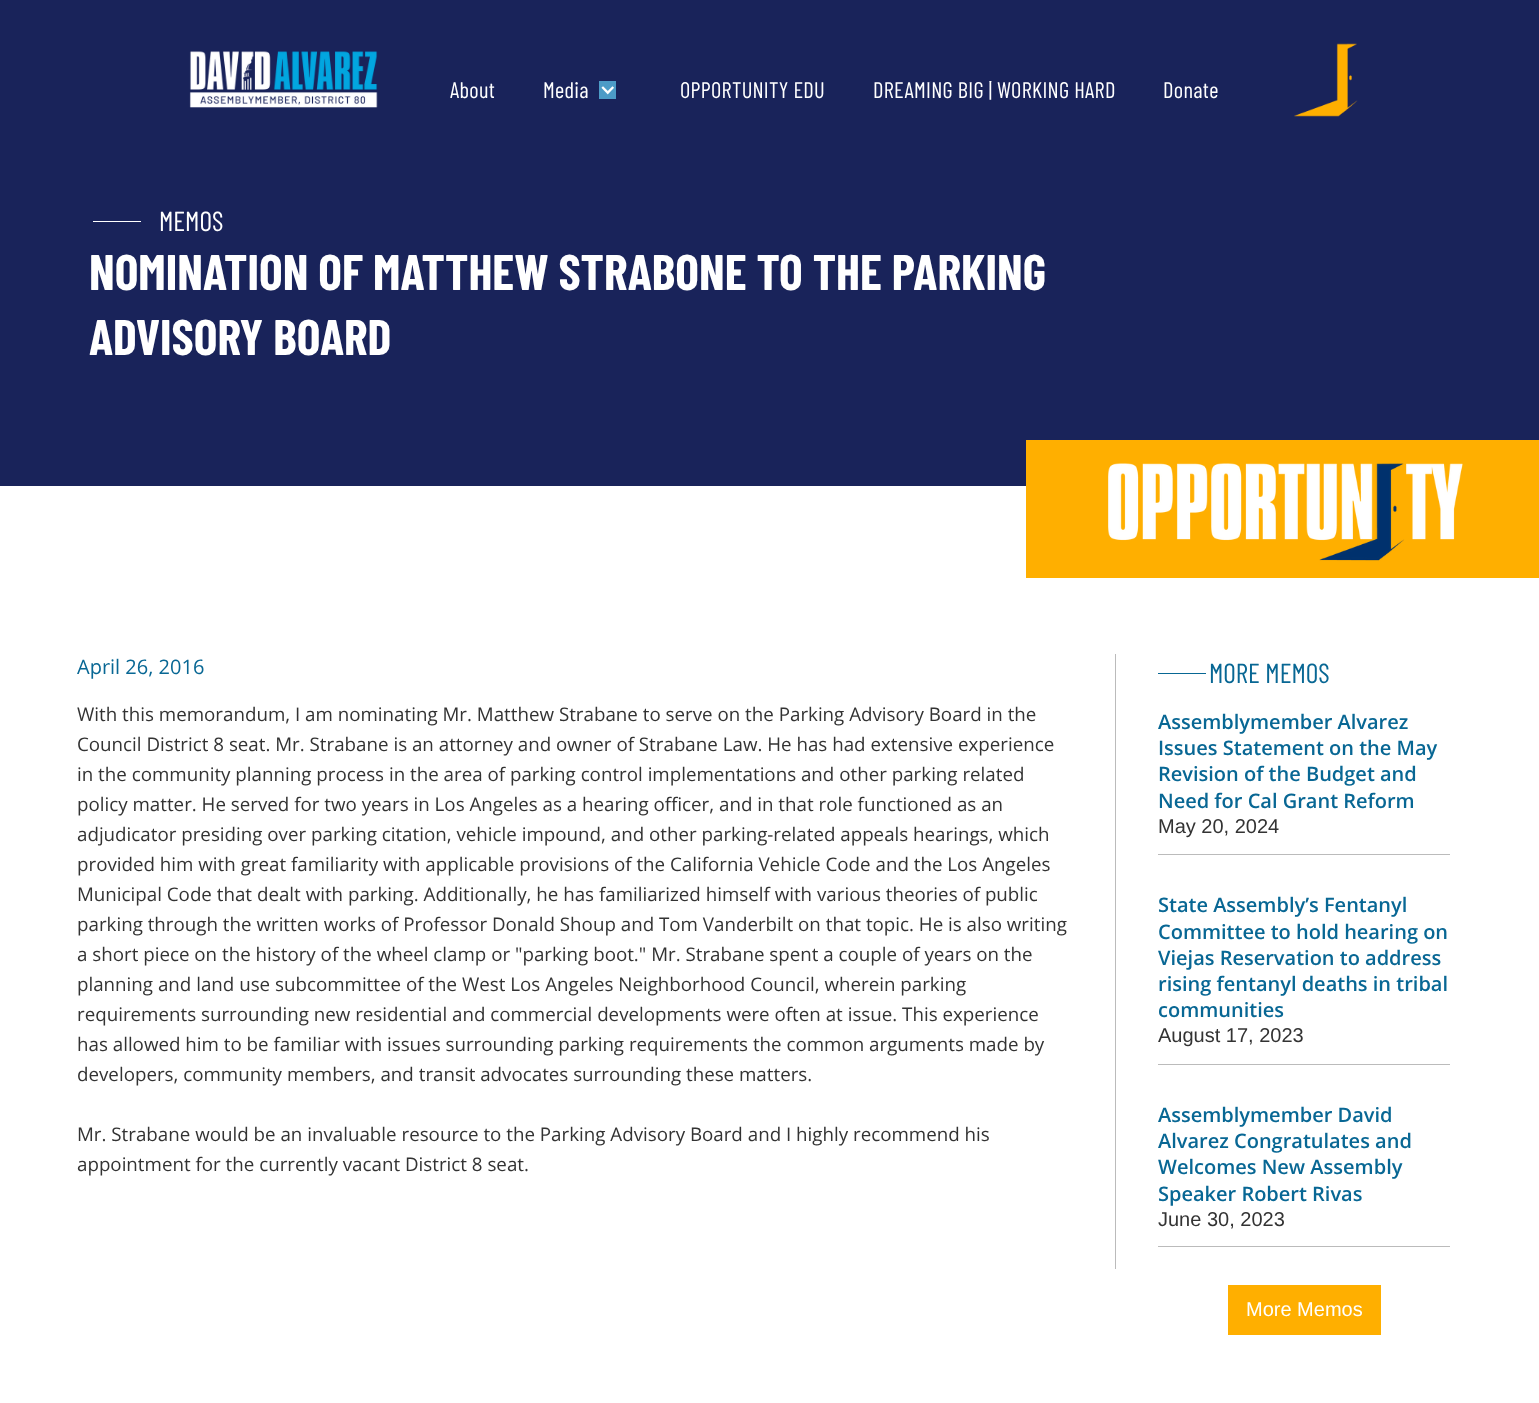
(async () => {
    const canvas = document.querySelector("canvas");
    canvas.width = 1539;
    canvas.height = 1403;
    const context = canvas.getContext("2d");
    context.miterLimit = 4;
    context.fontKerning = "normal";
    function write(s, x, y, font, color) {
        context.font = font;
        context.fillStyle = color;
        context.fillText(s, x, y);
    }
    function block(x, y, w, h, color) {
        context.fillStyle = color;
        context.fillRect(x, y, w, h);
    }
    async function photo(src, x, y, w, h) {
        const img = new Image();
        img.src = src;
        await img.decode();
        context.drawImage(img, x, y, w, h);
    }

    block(0, 0, 1539, 1403, "rgb(255, 255, 255)");
    block(0, 0, 1539, 486, "rgb(25, 35, 90)");
    await photo("media/1.png", 189, 51, 189, 57);
    context.letterSpacing = "0.3px";
    write("About", 450, 98, "22.5px Barlow Condensed", "rgb(255, 255, 255)");
    write("Media", 543, 98, "22.5px Barlow Condensed", "rgb(255, 255, 255)");
    block(599, 81, 17, 18, "rgb(76, 155, 199)");
    await photo("media/2.png", 601, 86, 13, 9);
    write("OPPORTUNITY EDU", 680, 98, "22.5px Barlow Condensed", "rgb(255, 255, 255)");
    write("DREAMING BIG | WORKING HARD", 873, 98, "22.5px Barlow Condensed", "rgb(255, 255, 255)");
    write("Donate", 1163, 98, "22.5px Barlow Condensed", "rgb(255, 255, 255)");
    await photo("media/3.png", 1294, 43, 64, 74);
    block(93, 221, 48, 1, "rgb(255, 255, 255)");
    context.letterSpacing = "0px";
    write("MEMOS", 159, 231, "27.5px Barlow Condensed", "rgb(255, 255, 255)");
    write("NOMINATION OF MATTHEW STRABONE TO THE PARKING", 89, 290, "bold 50px Barlow Condensed", "rgb(255, 255, 255)");
    write("ADVISORY BOARD", 89, 355, "bold 50px Barlow Condensed", "rgb(255, 255, 255)");
    block(1026, 440, 513, 138, "rgb(255, 175, 0)");
    await photo("media/4.png", 1108, 463, 355, 98);
    block(1115, 654, 1, 615, "rgb(187, 187, 187)");
    write("April 26, 2016", 77, 674, "20px Open Sans", "rgb(8, 103, 148)");
    write("With this memorandum, I am nominating Mr. Matthew Strabane to serve on the Parking Advisory Board in the", 77, 721, "18.75px Open Sans", "rgb(51, 51, 51)");
    write("Council District 8 seat. Mr. Strabane is an attorney and owner of Strabane Law. He has had extensive experience", 77, 751, "18.75px Open Sans", "rgb(51, 51, 51)");
    write("in the community planning process in the area of parking control implementations and other parking related", 77, 781, "18.75px Open Sans", "rgb(51, 51, 51)");
    write("policy matter. He served for two years in Los Angeles as a hearing officer, and in that role functioned as an", 77, 811, "18.75px Open Sans", "rgb(51, 51, 51)");
    write("adjudicator presiding over parking citation, vehicle impound, and other parking-related appeals hearings, which", 77, 841, "18.75px Open Sans", "rgb(51, 51, 51)");
    write("provided him with great familiarity with applicable provisions of the California Vehicle Code and the Los Angeles", 77, 871, "18.75px Open Sans", "rgb(51, 51, 51)");
    write("Municipal Code that dealt with parking. Additionally, he has familiarized himself with various theories of public", 77, 901, "18.75px Open Sans", "rgb(51, 51, 51)");
    write("parking through the written works of Professor Donald Shoup and Tom Vanderbilt on that topic. He is also writing", 77, 931, "18.75px Open Sans", "rgb(51, 51, 51)");
    write("a short piece on the history of the wheel clamp or \"parking boot.\" Mr. Strabane spent a couple of years on the", 77, 961, "18.75px Open Sans", "rgb(51, 51, 51)");
    write("planning and land use subcommittee of the West Los Angeles Neighborhood Council, wherein parking", 77, 991, "18.75px Open Sans", "rgb(51, 51, 51)");
    write("requirements surrounding new residential and commercial developments were often at issue. This experience", 77, 1021, "18.75px Open Sans", "rgb(51, 51, 51)");
    write("has allowed him to be familiar with issues surrounding parking requirements the common arguments made by", 77, 1051, "18.75px Open Sans", "rgb(51, 51, 51)");
    write("developers, community members, and transit advocates surrounding these matters.", 77, 1081, "18.75px Open Sans", "rgb(51, 51, 51)");
    write("Mr. Strabane would be an invaluable resource to the Parking Advisory Board and I highly recommend his", 77, 1141, "18.75px Open Sans", "rgb(51, 51, 51)");
    write("appointment for the currently vacant District 8 seat.", 77, 1171, "18.75px Open Sans", "rgb(51, 51, 51)");
    block(1158, 673, 48, 1, "rgb(8, 103, 148)");
    write("MORE MEMOS", 1209, 683, "27.5px Barlow Condensed", "rgb(8, 103, 148)");
    write("Assemblymember Alvarez", 1158, 729, "600 20px Open Sans", "rgb(8, 103, 148)");
    write("Issues Statement on the May", 1158, 755, "600 20px Open Sans", "rgb(8, 103, 148)");
    write("Revision of the Budget and", 1158, 781, "600 20px Open Sans", "rgb(8, 103, 148)");
    write("Need for Cal Grant Reform", 1158, 808, "600 20px Open Sans", "rgb(8, 103, 148)");
    block(1158, 854, 292, 1, "rgb(187, 187, 187)");
    write("May 20, 2024", 1158, 833, "20px Liberation Sans", "rgb(51, 51, 51)");
    write("State Assembly’s Fentanyl", 1158, 912, "600 20px Open Sans", "rgb(8, 103, 148)");
    write("Committee to hold hearing on", 1158, 939, "600 20px Open Sans", "rgb(8, 103, 148)");
    write("Viejas Reservation to address", 1158, 965, "600 20px Open Sans", "rgb(8, 103, 148)");
    write("rising fentanyl deaths in tribal", 1158, 991, "600 20px Open Sans", "rgb(8, 103, 148)");
    write("communities", 1158, 1017, "600 20px Open Sans", "rgb(8, 103, 148)");
    block(1158, 1064, 292, 1, "rgb(187, 187, 187)");
    write("August 17, 2023", 1158, 1042, "20px Liberation Sans", "rgb(51, 51, 51)");
    write("Assemblymember David", 1158, 1122, "600 20px Open Sans", "rgb(8, 103, 148)");
    write("Alvarez Congratulates and", 1158, 1148, "600 20px Open Sans", "rgb(8, 103, 148)");
    write("Welcomes New Assembly", 1158, 1174, "600 20px Open Sans", "rgb(8, 103, 148)");
    write("Speaker Robert Rivas", 1158, 1201, "600 20px Open Sans", "rgb(8, 103, 148)");
    block(1158, 1246, 292, 1, "rgb(187, 187, 187)");
    write("June 30, 2023", 1158, 1226, "20px Liberation Sans", "rgb(51, 51, 51)");
    block(1228, 1285, 153, 50, "rgb(255, 175, 0)");
    write("More Memos", 1246, 1316, "20px Liberation Sans", "rgb(255, 255, 255)");
})();
